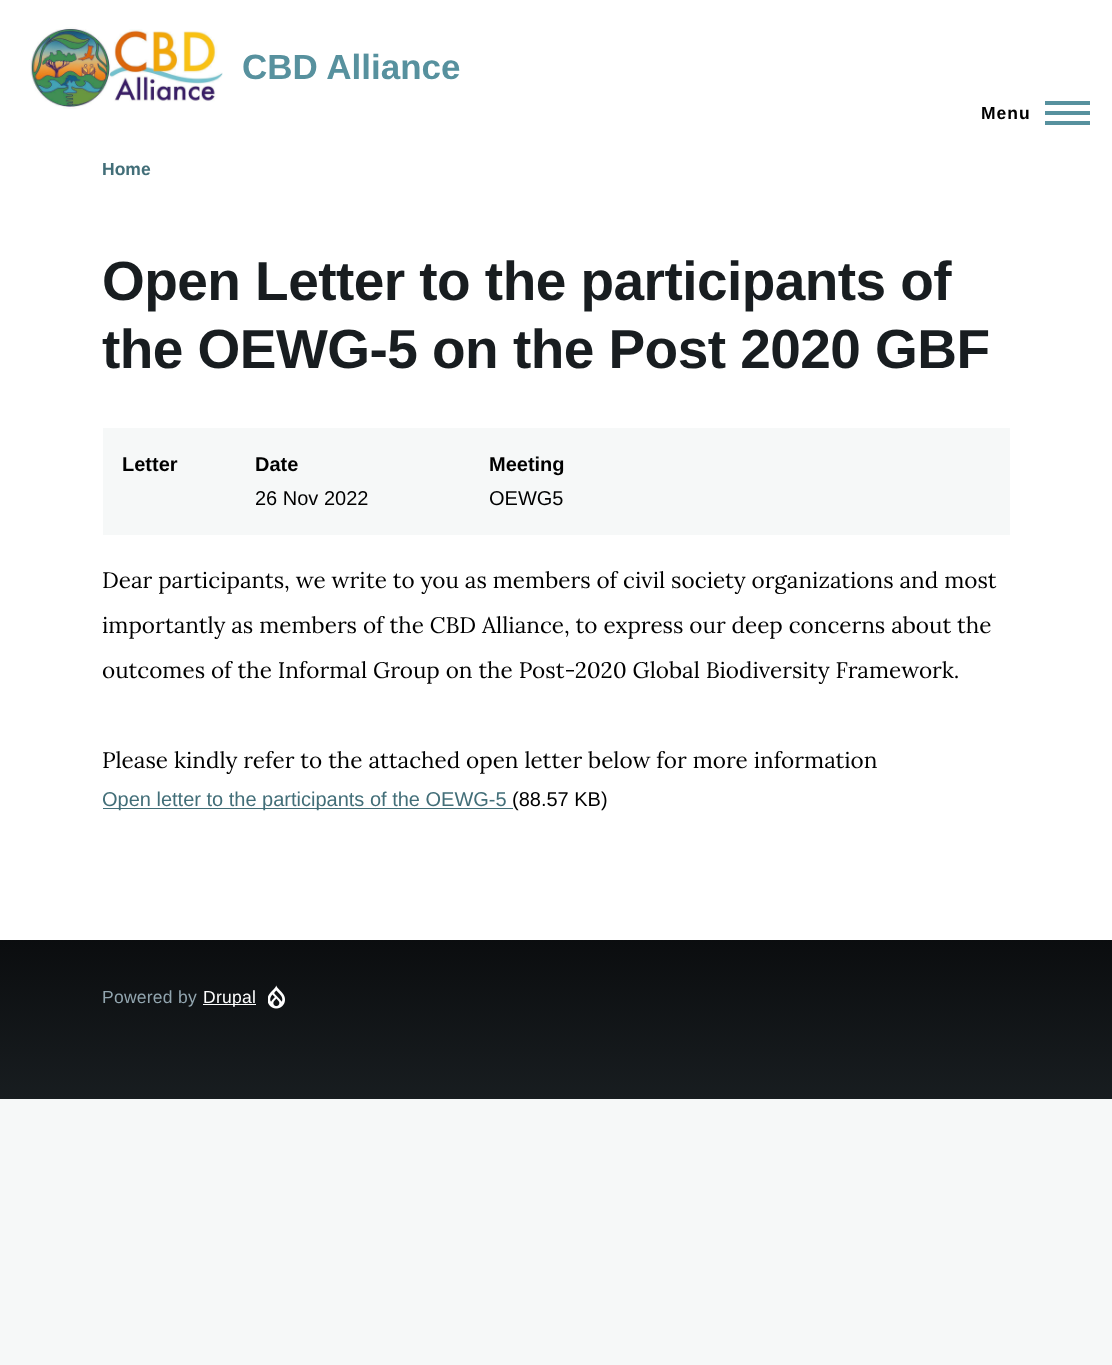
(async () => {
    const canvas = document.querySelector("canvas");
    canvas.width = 1112;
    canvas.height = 1365;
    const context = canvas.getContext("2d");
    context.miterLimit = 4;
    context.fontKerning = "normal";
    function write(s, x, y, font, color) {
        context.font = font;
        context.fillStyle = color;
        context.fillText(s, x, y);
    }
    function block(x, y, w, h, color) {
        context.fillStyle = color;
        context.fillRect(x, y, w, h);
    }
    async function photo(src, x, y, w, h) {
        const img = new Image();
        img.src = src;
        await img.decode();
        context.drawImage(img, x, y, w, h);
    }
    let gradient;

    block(0, 0, 1112, 1365, "rgb(246, 248, 248)");
    block(0, 0, 1112, 940, "rgb(255, 255, 255)");
    await photo("media/1.png", 30, 27, 193, 82);
    write("CBD Alliance", 242, 79, "bold 35px Liberation Sans", "rgb(87, 145, 158)");
    context.letterSpacing = "1px";
    write("Menu", 981, 119, "bold 17.5px Liberation Sans", "rgb(0, 0, 0)");
    block(1045, 111, 45, 4, "rgb(87, 145, 158)");
    block(1045, 101, 45, 4, "rgb(87, 145, 158)");
    block(1045, 121, 45, 4, "rgb(87, 145, 158)");
    context.letterSpacing = "0px";
    write("Home", 102, 175, "bold 17.5px Liberation Sans", "rgb(66, 110, 120)");
    context.letterSpacing = "-0.55px";
    write("Open Letter to the participants of", 102, 300, "bold 55px Liberation Sans", "rgb(24, 29, 32)");
    write("the OEWG-5 on the Post 2020 GBF", 102, 368, "bold 55px Liberation Sans", "rgb(24, 29, 32)");
    block(103, 428, 907, 107, "rgb(246, 248, 248)");
    context.letterSpacing = "0px";
    write("Letter", 122, 471, "bold 20px Liberation Sans", "rgb(0, 0, 0)");
    write("Date", 255, 471, "bold 20px Liberation Sans", "rgb(0, 0, 0)");
    write("26 Nov 2022", 255, 505, "20px Liberation Sans", "rgb(0, 0, 0)");
    write("Meeting", 489, 471, "bold 20px Liberation Sans", "rgb(0, 0, 0)");
    write("OEWG5", 489, 505, "20px Liberation Sans", "rgb(0, 0, 0)");
    write("Dear participants, we write to you as members of civil society organizations and most", 102, 588, "22.5px Lora", "rgb(0, 0, 0)");
    write("importantly as members of the CBD Alliance, to express our deep concerns about the", 102, 633, "22.5px Lora", "rgb(0, 0, 0)");
    write("outcomes of the Informal Group on the Post-2020 Global Biodiversity Framework.", 102, 678, "22.5px Lora", "rgb(0, 0, 0)");
    write("Please kindly refer to the attached open letter below for more information", 102, 768, "22.5px Lora", "rgb(0, 0, 0)");
    block(103, 808, 410, 1, "rgb(66, 110, 120)");
    write("Open letter to the participants of the OEWG-5", 102, 806, "20px Liberation Sans", "rgb(66, 110, 120)");
    write("(88.57 KB)", 512, 806, "20px Liberation Sans", "rgb(0, 0, 0)");
    gradient = context.createLinearGradient(556, 940, 556, 1099);
    gradient.addColorStop(0, "rgb(11, 13, 15)");
    gradient.addColorStop(1, "rgb(24, 29, 32)");
    context.fillStyle = gradient;
    context.fillRect(0, 940, 1112, 159);
    context.letterSpacing = "0.25px";
    write("Powered by", 102, 1003, "17.5px Liberation Sans", "rgb(146, 165, 175)");
    block(203, 1004, 53, 1, "rgb(255, 255, 255)");
    write("Drupal", 203, 1003, "17.5px Liberation Sans", "rgb(255, 255, 255)");
    await photo("media/2.png", 268, 985, 17, 24);
})();
